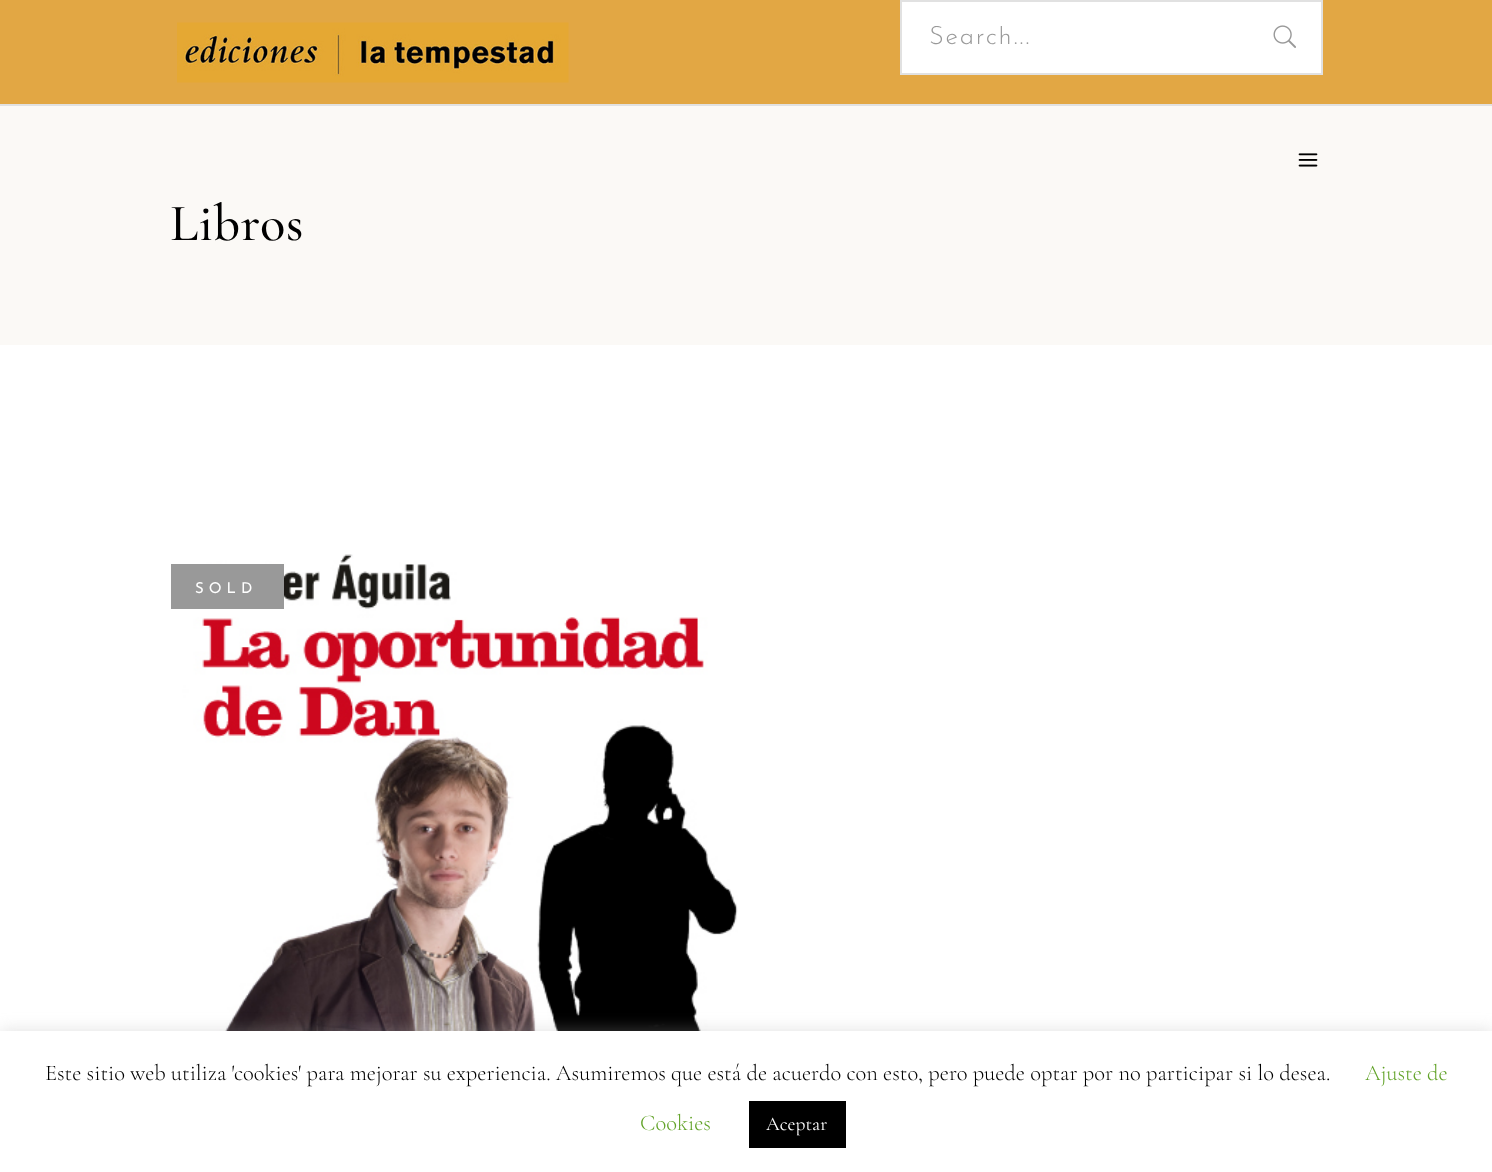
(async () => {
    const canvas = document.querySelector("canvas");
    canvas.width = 1492;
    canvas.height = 1172;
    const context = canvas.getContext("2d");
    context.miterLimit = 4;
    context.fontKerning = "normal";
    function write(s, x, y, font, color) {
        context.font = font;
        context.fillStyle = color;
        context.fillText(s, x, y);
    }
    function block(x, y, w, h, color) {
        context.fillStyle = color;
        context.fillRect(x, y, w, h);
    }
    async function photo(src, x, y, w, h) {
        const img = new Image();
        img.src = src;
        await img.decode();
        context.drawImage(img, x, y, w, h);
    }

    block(0, 0, 1492, 1172, "rgb(255, 255, 255)");
    block(0, 0, 1492, 104, "rgb(226, 167, 68)");
    block(0, 104, 1492, 2, "rgb(225, 225, 225)");
    await photo("media/1.png", 177, 22, 392, 61);
    context.fillStyle = "rgb(255, 255, 255)";
    context.beginPath();
    context.rect(901, 1, 421, 73);
    context.fill();
    context.strokeStyle = "rgb(225, 225, 225)";
    context.lineWidth = 2;
    context.stroke();
    context.save();
    context.beginPath();
    context.rect(930, 26, 302, 25);
    context.clip();
    context.letterSpacing = "1.75px";
    write("Search...", 929, 44, "300 25.5px Josefin Sans", "rgb(153, 153, 153)");
    context.restore();
    await photo("media/2.png", 1273, 25, 23, 23);
    block(0, 106, 1492, 239, "rgb(251, 249, 246)");
    await photo("media/3.png", 1298, 153, 20, 14);
    context.letterSpacing = "0.5px";
    write("Libros", 170, 240, "500 52.5px Cormorant Garamond", "rgb(0, 0, 0)");
    await photo("media/4.png", 178, 554, 560, 477);
    block(171, 564, 113, 45, "rgb(153, 153, 153)");
    context.letterSpacing = "5px";
    write("SOLD", 195, 593, "15px Josefin Sans", "rgb(255, 255, 255)");
    context.fillStyle = "rgba(172, 171, 171, 0.3)";
    context.filter = "blur(7.5px)";
    context.beginPath();
    context.rect(0, 1029, 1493, 143);
    context.fill();
    context.filter = "none";
    block(0, 1031, 1492, 141, "rgb(255, 255, 255)");
    context.letterSpacing = "0px";
    write("Este sitio web utiliza 'cookies' para mejorar su experiencia. Asumiremos que está de acuerdo con esto, pero puede optar por no participar si lo desea.", 45, 1080, "300 22.5px Cormorant Garamond", "rgb(0, 0, 0)");
    write("Ajuste de", 1365, 1080, "300 22.5px Cormorant Garamond", "rgb(98, 163, 41)");
    write("Cookies", 640, 1130, "300 22.5px Cormorant Garamond", "rgb(98, 163, 41)");
    block(749, 1101, 97, 47, "rgb(0, 0, 0)");
    write("Aceptar", 766, 1130, "19.5px Cormorant Garamond", "rgb(255, 255, 255)");
})();
